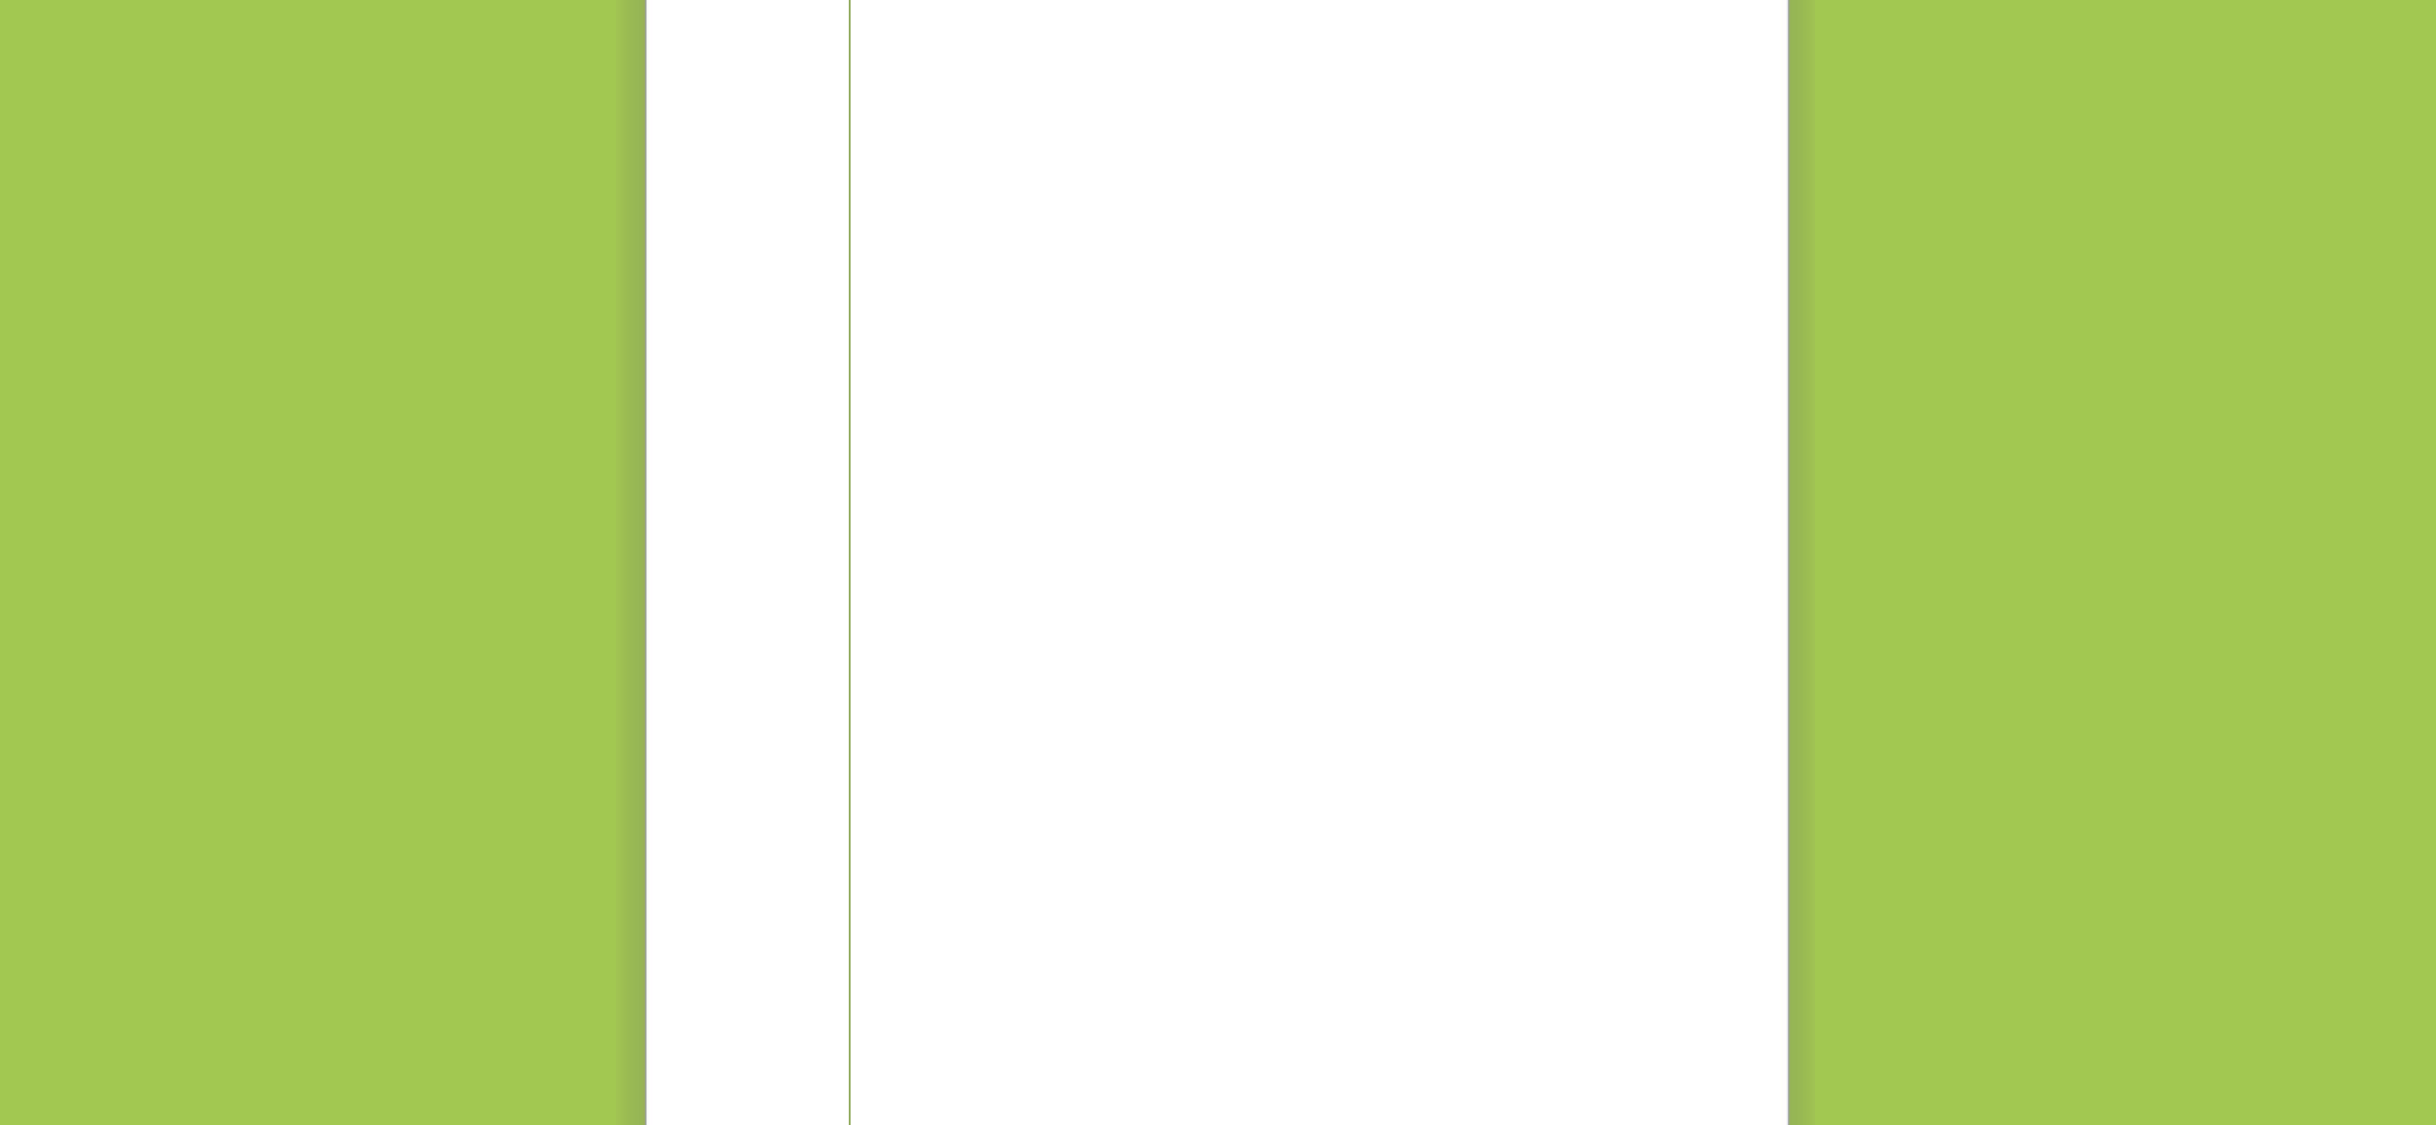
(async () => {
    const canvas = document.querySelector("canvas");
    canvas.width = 2436;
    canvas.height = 1125;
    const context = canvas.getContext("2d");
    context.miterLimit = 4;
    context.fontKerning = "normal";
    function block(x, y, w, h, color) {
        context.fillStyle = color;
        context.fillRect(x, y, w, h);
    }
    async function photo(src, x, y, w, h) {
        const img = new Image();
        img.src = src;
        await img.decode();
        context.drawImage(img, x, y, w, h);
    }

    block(0, 0, 2436, 1125, "rgb(162, 200, 81)");
    await photo("media/1.png", 616, 0, 1199, 1125);
})();
